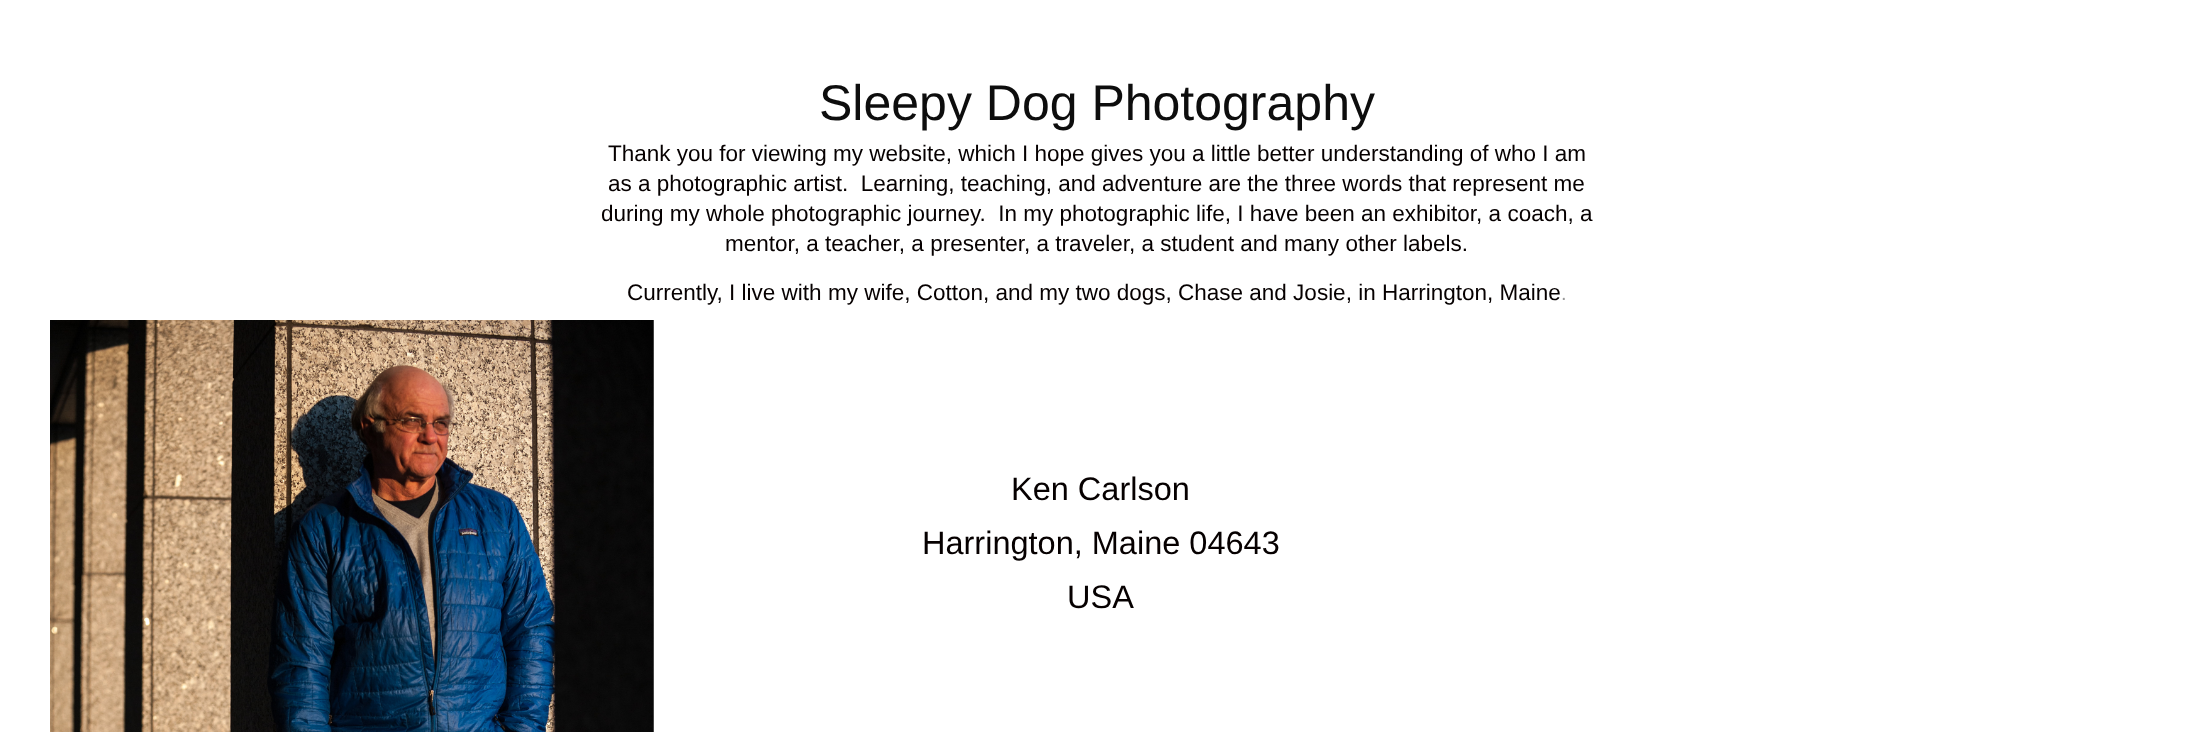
(async () => {
    const canvas = document.querySelector("canvas");
    canvas.width = 2193;
    canvas.height = 732;
    const context = canvas.getContext("2d");
    context.miterLimit = 4;
    context.fontKerning = "normal";
    function write(s, x, y, font, color) {
        context.font = font;
        context.fillStyle = color;
        context.fillText(s, x, y);
    }
    function block(x, y, w, h, color) {
        context.fillStyle = color;
        context.fillRect(x, y, w, h);
    }
    async function photo(src, x, y, w, h) {
        const img = new Image();
        img.src = src;
        await img.decode();
        context.drawImage(img, x, y, w, h);
    }

    block(0, 0, 2193, 732, "rgb(255, 255, 255)");
    write("Sleepy Dog Photography", 819, 120, "50px Liberation Sans", "rgb(13, 13, 13)");
    write("Thank you for viewing my website, which I hope gives you a little better understanding of who I am", 608, 161, "22.5px Liberation Sans", "rgb(6, 0, 0)");
    write("as a photographic artist.  Learning, teaching, and adventure are the three words that represent me", 608, 191, "22.5px Liberation Sans", "rgb(6, 0, 0)");
    write("during my whole photographic journey.  In my photographic life, I have been an exhibitor, a coach, a", 601, 221, "22.5px Liberation Sans", "rgb(6, 0, 0)");
    write("mentor, a teacher, a presenter, a traveler, a student and many other labels.", 725, 251, "22.5px Liberation Sans", "rgb(6, 0, 0)");
    write("Currently, I live with my wife, Cotton, and my two dogs, Chase and Josie, in Harrington, Maine", 627, 300, "22.5px Liberation Sans", "rgb(6, 0, 0)");
    write(".", 1561, 300, "20px Liberation Sans", "rgb(153, 153, 153)");
    await photo("media/1.png", 50, 320, 604, 412);
    write("Ken Carlson", 1011, 500, "32.5px Liberation Sans", "rgb(6, 0, 0)");
    write("Harrington, Maine 04643", 922, 554, "32.5px Liberation Sans", "rgb(6, 0, 0)");
    write("USA", 1067, 608, "32.5px Liberation Sans", "rgb(6, 0, 0)");
})();
